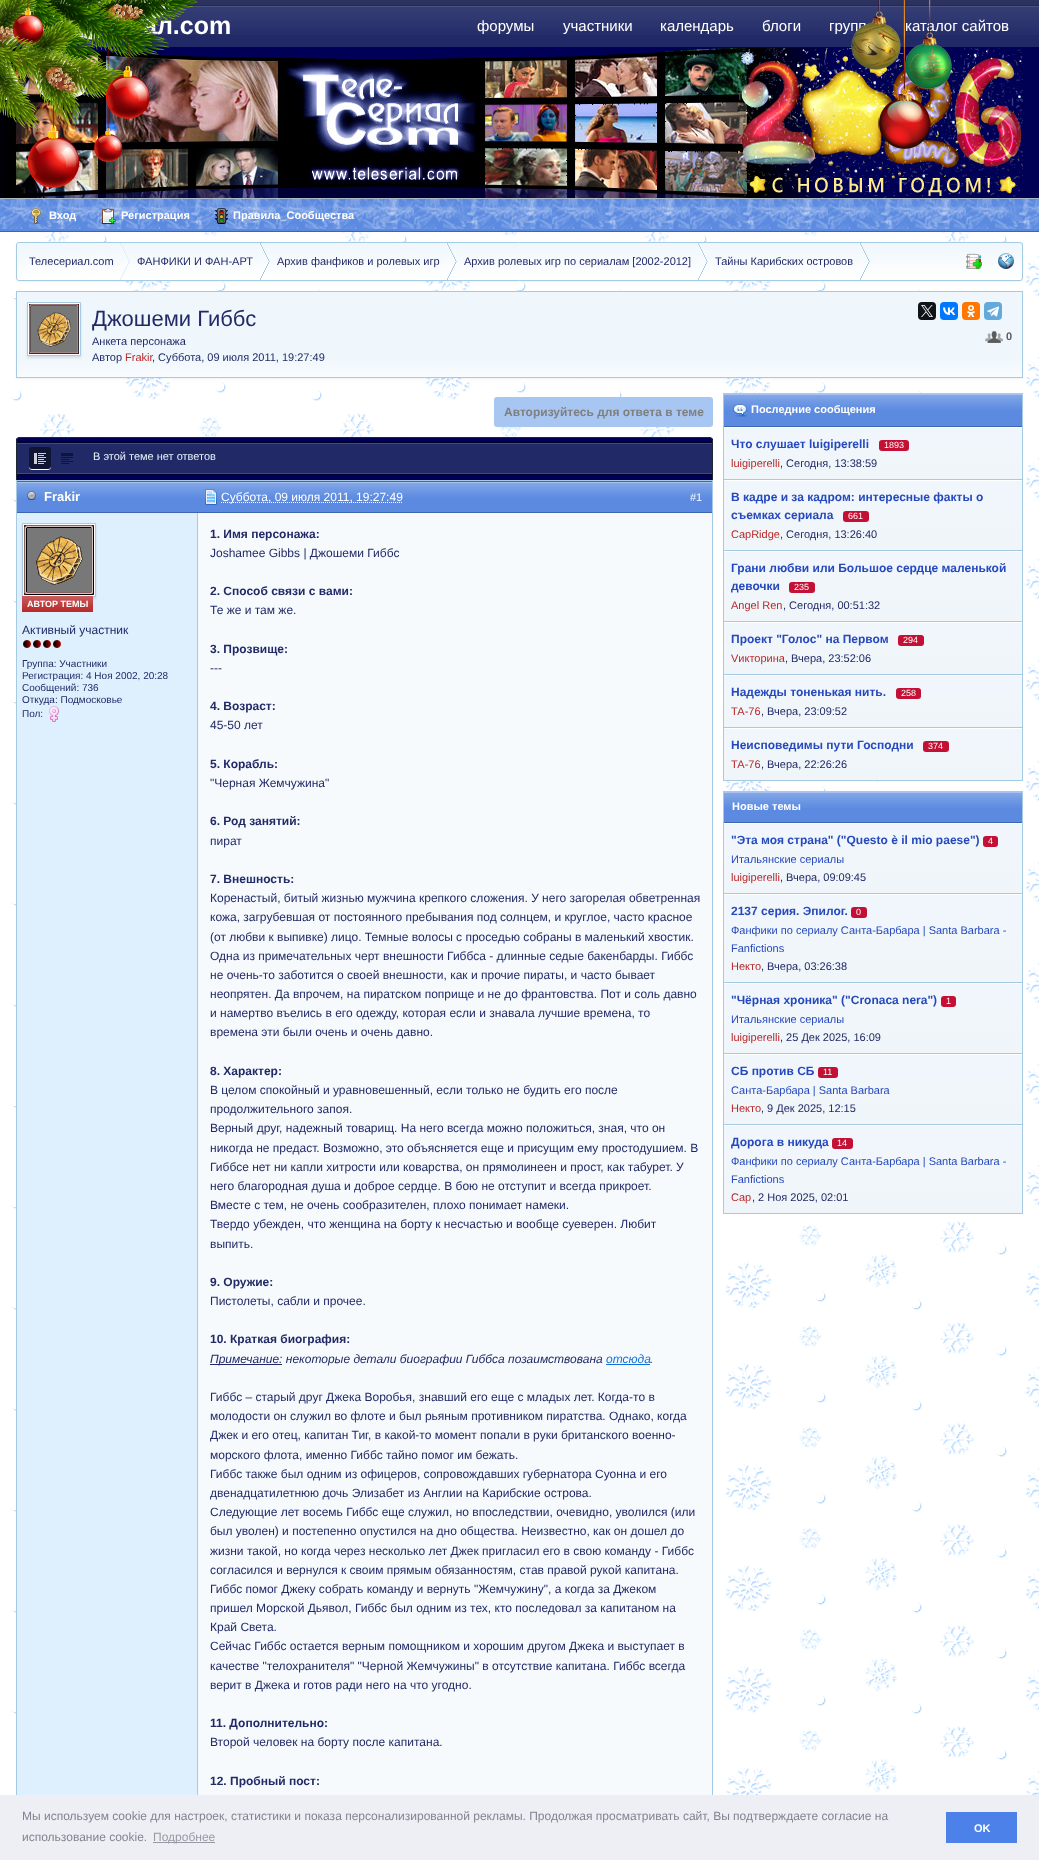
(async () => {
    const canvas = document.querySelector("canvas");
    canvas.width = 1039;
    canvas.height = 1860;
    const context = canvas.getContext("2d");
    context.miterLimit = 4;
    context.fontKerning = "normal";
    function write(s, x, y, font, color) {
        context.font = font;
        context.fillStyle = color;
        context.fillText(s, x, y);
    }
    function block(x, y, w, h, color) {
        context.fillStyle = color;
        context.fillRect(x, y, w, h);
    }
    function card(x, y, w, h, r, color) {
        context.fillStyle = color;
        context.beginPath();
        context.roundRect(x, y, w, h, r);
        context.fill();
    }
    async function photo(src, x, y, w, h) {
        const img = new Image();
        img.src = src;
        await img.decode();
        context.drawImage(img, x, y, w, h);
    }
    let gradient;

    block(0, 0, 1039, 1860, "rgb(255, 255, 255)");
    await photo("media/1.png", 11, 232, 1028, 1563);
    block(1, 0, 1038, 47, "rgb(33, 42, 103)");
    await photo("media/2.png", 1, 0, 1038, 35);
    block(10, 47, 1029, 1, "rgb(0, 0, 85)");
    write("ал.com", 143, 34, "bold 25px Liberation Sans", "rgb(255, 255, 255)");
    await photo("media/5.png", 0, 48, 832, 150);
    await photo("media/3.png", 0, 0, 197, 188);
    write("групп", 829, 31, "15px Liberation Sans", "rgb(255, 255, 255)");
    write("каталог сайтов", 905, 31, "15px Liberation Sans", "rgb(255, 255, 255)");
    block(832, 48, 207, 150, "rgb(0, 0, 85)");
    await photo("media/6.png", 738, 48, 285, 150);
    await photo("media/4.png", 851, 0, 101, 149);
    write("форумы", 477, 31, "15px Liberation Sans", "rgb(255, 255, 255)");
    write("участники", 563, 31, "15px Liberation Sans", "rgb(255, 255, 255)");
    write("календарь", 660, 31, "15px Liberation Sans", "rgb(255, 255, 255)");
    write("блоги", 762, 31, "15px Liberation Sans", "rgb(255, 255, 255)");
    block(0, 199, 1039, 32, "rgb(91, 138, 224)");
    await photo("media/7.png", 0, 199, 1039, 30);
    block(0, 198, 1039, 1, "rgb(171, 184, 197)");
    block(0, 231, 1039, 1, "rgb(61, 102, 176)");
    await photo("media/8.png", 31, 208, 10, 16);
    write("Вход", 49, 219, "bold 11px Liberation Sans", "rgb(255, 255, 255)");
    await photo("media/9.png", 100, 208, 16, 16);
    write("Регистрация", 121, 219, "bold 11px Liberation Sans", "rgb(255, 255, 255)");
    await photo("media/10.png", 215, 208, 13, 16);
    write("Правила_Сообщества", 233, 219, "bold 11px Liberation Sans", "rgb(255, 255, 255)");
    context.fillStyle = "rgba(0, 0, 0, 0.05)";
    context.filter = "blur(1px)";
    context.beginPath();
    context.roundRect(16, 243, 1007, 39, 3);
    context.fill();
    context.filter = "none";
    await photo("media/11.png", 16, 243, 1007, 37);
    context.beginPath();
    context.roundRect(16.5, 242.5, 1006, 38, 2.5);
    context.strokeStyle = "rgb(165, 202, 228)";
    context.stroke();
    await photo("media/12.png", 17, 243, 113, 37);
    write("Телесериал.com", 29, 265, "11px Liberation Sans", "rgb(33, 42, 103)");
    await photo("media/13.png", 121, 243, 9, 37);
    await photo("media/14.png", 259, 243, 11, 37);
    write("ФАНФИКИ И ФАН-АРТ", 137, 265, "11px Liberation Sans", "rgb(33, 42, 103)");
    await photo("media/15.png", 261, 245, 9, 33);
    await photo("media/14.png", 446, 243, 11, 37);
    write("Архив фанфиков и ролевых игр", 277, 265, "11px Liberation Sans", "rgb(33, 42, 103)");
    await photo("media/16.png", 448, 245, 9, 33);
    await photo("media/17.png", 697, 243, 11, 37);
    write("Архив ролевых игр по сериалам [2002-2012]", 464, 265, "11px Liberation Sans", "rgb(33, 42, 103)");
    await photo("media/18.png", 699, 243, 9, 37);
    await photo("media/17.png", 859, 243, 11, 37);
    write("Тайны Карибских островов", 715, 265, "11px Liberation Sans", "rgb(33, 42, 103)");
    await photo("media/19.png", 966, 253, 16, 16);
    await photo("media/20.png", 998, 253, 16, 16);
    context.fillStyle = "rgba(0, 0, 0, 0.05)";
    context.filter = "blur(1px)";
    context.beginPath();
    context.rect(16, 292, 1007, 87);
    context.fill();
    context.filter = "none";
    await photo("media/21.png", 17, 292, 1005, 85);
    context.strokeRect(16.5, 291.5, 1006, 86);
    context.fillStyle = "rgba(0, 0, 0, 0.1)";
    context.filter = "blur(1px)";
    context.beginPath();
    context.rect(27, 304, 54, 54);
    context.fill();
    context.filter = "none";
    context.fillStyle = "rgb(255, 255, 255)";
    context.beginPath();
    context.rect(27.5, 302.5, 53, 53);
    context.fill();
    context.stroke();
    await photo("media/22.png", 29, 304, 50, 50);
    write("Джошеми Гиббс", 92, 326, "22px Liberation Sans", "rgb(33, 42, 103)");
    write("Анкета персонажа", 92, 345, "11px Liberation Sans", "rgb(33, 42, 103)");
    card(918, 302, 18, 18, 4, "rgb(15, 20, 25)");
    await photo("media/23.png", 921, 305, 12, 12);
    card(940, 302, 18, 18, 4, "rgb(0, 119, 255)");
    await photo("media/24.png", 943, 307, 12, 8);
    card(962, 302, 18, 18, 4, "rgb(255, 119, 0)");
    await photo("media/25.png", 967, 305, 8, 12);
    card(984, 302, 18, 18, 4, "rgb(100, 169, 220)");
    await photo("media/26.png", 987, 306, 12, 11);
    await photo("media/27.png", 985, 331, 18, 12);
    write("0", 1006, 340, "bold 11px Liberation Sans", "rgb(92, 92, 92)");
    write("Автор", 92, 361, "11px Liberation Sans", "rgb(33, 42, 103)");
    write("Frakir", 125, 361, "11px Liberation Sans", "rgb(184, 41, 41)");
    write(", Суббота, 09 июля 2011, 19:27:49", 152, 361, "11px Liberation Sans", "rgb(33, 42, 103)");
    card(494, 397, 219, 30, 3, "rgb(167, 198, 241)");
    write("Авторизуйтесь для ответа в теме", 504, 416, "bold 12px Liberation Sans", "rgb(127, 127, 127)");
    context.fillStyle = "rgb(0, 0, 85)";
    context.beginPath();
    context.roundRect(16, 437, 697, 43, [4, 4, 0, 0]);
    context.fill();
    await photo("media/28.png", 16, 438, 697, 37);
    context.fillStyle = "rgb(30, 40, 50)";
    context.beginPath();
    context.moveTo(20, 437);
    context.lineTo(709, 437);
    context.bezierCurveTo(711, 437, 713, 439, 713, 441);
    context.lineTo(713, 480);
    context.lineTo(16, 480);
    context.lineTo(16, 441);
    context.bezierCurveTo(16, 439, 18, 437, 20, 437);
    context.closePath();
    context.moveTo(20, 438);
    context.lineTo(709, 438);
    context.bezierCurveTo(711, 438, 712, 439, 712, 441);
    context.lineTo(712, 480);
    context.lineTo(17, 480);
    context.lineTo(17, 441);
    context.bezierCurveTo(17, 439, 18, 438, 20, 438);
    context.closePath();
    context.fill("evenodd");
    context.fillStyle = "rgb(255, 255, 255)";
    context.beginPath();
    context.moveTo(29, 466);
    context.bezierCurveTo(29, 470, 31, 470, 34.5, 470);
    context.lineTo(45.5, 470);
    context.bezierCurveTo(49, 470, 51, 470, 51, 466);
    context.bezierCurveTo(51, 467.5, 49.5, 469, 48, 469);
    context.lineTo(32, 469);
    context.bezierCurveTo(30.5, 469, 29, 467.5, 29, 466);
    context.closePath();
    context.fill();
    card(29, 447, 22, 22, 3, "rgba(0, 0, 0, 0.5)");
    await photo("media/29.png", 34, 453, 12, 11);
    await photo("media/30.png", 61, 453, 12, 11);
    write("В этой теме нет ответов", 93, 460, "11px Liberation Sans", "rgb(232, 243, 249)");
    context.strokeRect(16.5, 480.5, 696, 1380);
    block(17, 513, 180, 1282, "rgb(222, 239, 254)");
    block(17, 482, 695, 30, "rgb(91, 138, 224)");
    await photo("media/31.png", 17, 482, 695, 16);
    block(17, 481, 695, 1, "rgb(61, 102, 176)");
    block(17, 512, 695, 1, "rgb(61, 102, 176)");
    await photo("media/32.png", 27, 491, 9, 9);
    write("Frakir", 44, 501, "bold 13px Liberation Sans", "rgb(255, 255, 255)");
    await photo("media/33.png", 205, 489, 12, 16);
    context.beginPath();
    context.moveTo(221, 502.5);
    context.lineTo(402.5, 502.5);
    context.strokeStyle = "rgb(255, 255, 255)";
    context.setLineDash([1, 1]);
    context.stroke();
    write("Суббота, 09 июля 2011, 19:27:49", 221, 501, "12px Liberation Sans", "rgb(255, 255, 255)");
    write("#1", 690, 501, "11px Liberation Sans", "rgb(255, 255, 255)");
    context.fillStyle = "rgba(0, 0, 0, 0.1)";
    context.filter = "blur(1px)";
    context.beginPath();
    context.rect(22, 525, 74, 74);
    context.fill();
    context.filter = "none";
    context.fillStyle = "rgb(255, 255, 255)";
    context.beginPath();
    context.rect(22.5, 523.5, 73, 73);
    context.fill();
    context.strokeStyle = "rgb(165, 202, 228)";
    context.setLineDash([]);
    context.stroke();
    await photo("media/34.png", 24, 525, 70, 70);
    block(22, 596, 71, 16, "rgb(184, 41, 41)");
    await photo("media/35.png", 22, 596, 71, 15);
    write("АВТОР ТЕМЫ", 27, 607, "bold 9px Liberation Sans", "rgb(255, 255, 255)");
    write("Активный участник", 22, 634, "12px Liberation Sans", "rgb(33, 42, 103)");
    await photo("media/36.png", 23, 640, 8, 8);
    await photo("media/36.png", 33, 640, 8, 8);
    await photo("media/36.png", 43, 640, 8, 8);
    await photo("media/36.png", 53, 640, 8, 8);
    write("Группа: Участники", 22, 667, "10px Liberation Sans", "rgb(33, 42, 103)");
    write("Регистрация: 4 Ноя 2002, 20:28", 22, 679, "10px Liberation Sans", "rgb(33, 42, 103)");
    write("Сообщений: 736", 22, 691, "10px Liberation Sans", "rgb(33, 42, 103)");
    write("Откуда: Подмосковье", 22, 703, "10px Liberation Sans", "rgb(33, 42, 103)");
    write("Пол:", 22, 717, "10px Liberation Sans", "rgb(33, 42, 103)");
    await photo("media/37.png", 49, 706, 10, 16);
    block(198, 513, 514, 1282, "rgb(246, 250, 253)");
    block(197, 513, 1, 1282, "rgb(165, 202, 228)");
    write("1. Имя персонажа:", 210, 538, "bold 12px Liberation Sans", "rgb(33, 42, 103)");
    write("Joshamee Gibbs | Джошеми Гиббс", 210, 557, "12px Liberation Sans", "rgb(33, 42, 103)");
    write("2. Способ связи с вами:", 210, 595, "bold 12px Liberation Sans", "rgb(33, 42, 103)");
    write("Те же и там же.", 210, 614, "12px Liberation Sans", "rgb(33, 42, 103)");
    write("3. Прозвище:", 210, 653, "bold 12px Liberation Sans", "rgb(33, 42, 103)");
    write("---", 210, 672, "12px Liberation Sans", "rgb(33, 42, 103)");
    write("4. Возраст:", 210, 710, "bold 12px Liberation Sans", "rgb(33, 42, 103)");
    write("45-50 лет", 210, 729, "12px Liberation Sans", "rgb(33, 42, 103)");
    write("5. Корабль:", 210, 768, "bold 12px Liberation Sans", "rgb(33, 42, 103)");
    write("\"Черная Жемчужина\"", 210, 787, "12px Liberation Sans", "rgb(33, 42, 103)");
    write("6. Род занятий:", 210, 825, "bold 12px Liberation Sans", "rgb(33, 42, 103)");
    write("пират", 210, 845, "12px Liberation Sans", "rgb(33, 42, 103)");
    write("7. Внешность:", 210, 883, "bold 12px Liberation Sans", "rgb(33, 42, 103)");
    write("Коренастый, битый жизнью мужчина крепкого сложения. У него загорелая обветренная", 210, 902, "12px Liberation Sans", "rgb(33, 42, 103)");
    write("кожа, загрубевшая от постоянного пребывания под солнцем, и круглое, часто красное", 210, 921, "12px Liberation Sans", "rgb(33, 42, 103)");
    write("(от любви к выпивке) лицо. Темные волосы с проседью собраны в маленький хвостик.", 210, 941, "12px Liberation Sans", "rgb(33, 42, 103)");
    write("Одна из примечательных черт внешности Гиббса - длинные седые бакенбарды. Гиббс", 210, 960, "12px Liberation Sans", "rgb(33, 42, 103)");
    write("не очень-то заботится о своей внешности, как и прочие пираты, и часто бывает", 210, 979, "12px Liberation Sans", "rgb(33, 42, 103)");
    write("неопрятен. Да впрочем, на пиратском поприще и не до франтовства. Пот и соль давно", 210, 998, "12px Liberation Sans", "rgb(33, 42, 103)");
    write("и намертво въелись в его одежду, которая если и знавала лучшие времена, то", 210, 1017, "12px Liberation Sans", "rgb(33, 42, 103)");
    write("времена эти были очень и очень давно.", 210, 1036, "12px Liberation Sans", "rgb(33, 42, 103)");
    write("8. Характер:", 210, 1075, "bold 12px Liberation Sans", "rgb(33, 42, 103)");
    write("В целом спокойный и уравновешенный, если только не будить его после", 210, 1094, "12px Liberation Sans", "rgb(33, 42, 103)");
    write("продолжительного запоя.", 210, 1113, "12px Liberation Sans", "rgb(33, 42, 103)");
    write("Верный друг, надежный товарищ. На него всегда можно положиться, зная, что он", 210, 1132, "12px Liberation Sans", "rgb(33, 42, 103)");
    write("никогда не предаст. Возможно, это объясняется еще и присущим ему простодушием. В", 210, 1152, "12px Liberation Sans", "rgb(33, 42, 103)");
    write("Гиббсе нет ни капли хитрости или коварства, он прямолинеен и прост, как табурет. У", 210, 1171, "12px Liberation Sans", "rgb(33, 42, 103)");
    write("него благородная душа и доброе сердце. В бою не отступит и всегда прикроет.", 210, 1190, "12px Liberation Sans", "rgb(33, 42, 103)");
    write("Вместе с тем, не очень сообразителен, плохо понимает намеки.", 210, 1209, "12px Liberation Sans", "rgb(33, 42, 103)");
    write("Твердо убежден, что женщина на борту к несчастью и вообще суеверен. Любит", 210, 1228, "12px Liberation Sans", "rgb(33, 42, 103)");
    write("выпить.", 210, 1248, "12px Liberation Sans", "rgb(33, 42, 103)");
    write("9. Оружие:", 210, 1286, "bold 12px Liberation Sans", "rgb(33, 42, 103)");
    write("Пистолеты, сабли и прочее.", 210, 1305, "12px Liberation Sans", "rgb(33, 42, 103)");
    write("10. Краткая биография:", 210, 1343, "bold 12px Liberation Sans", "rgb(33, 42, 103)");
    block(210, 1364, 72, 1, "rgb(33, 42, 103)");
    write("Примечание: некоторые детали биографии Гиббса позаимствована", 210, 1363, "italic 12px Liberation Sans", "rgb(33, 42, 103)");
    write("отсюда", 606, 1363, "italic 12px Liberation Sans", "rgb(15, 114, 218)");
    write(".", 650, 1363, "italic 12px Liberation Sans", "rgb(33, 42, 103)");
    block(606, 1364, 44, 1, "rgb(15, 114, 218)");
    write("Гиббс – старый друг Джека Воробья, знавший его еще с младых лет. Когда-то в", 210, 1401, "12px Liberation Sans", "rgb(33, 42, 103)");
    write("молодости он служил во флоте и был рьяным противником пиратства. Однако, когда", 210, 1420, "12px Liberation Sans", "rgb(33, 42, 103)");
    write("Джек и его отец, капитан Тиг, в какой-то момент попали в руки британского военно-", 210, 1439, "12px Liberation Sans", "rgb(33, 42, 103)");
    write("морского флота, именно Гиббс тайно помог им бежать.", 210, 1459, "12px Liberation Sans", "rgb(33, 42, 103)");
    write("Гиббс также был одним из офицеров, сопровождавших губернатора Суонна и его", 210, 1478, "12px Liberation Sans", "rgb(33, 42, 103)");
    write("двенадцатилетнюю дочь Элизабет из Англии на Карибские острова.", 210, 1497, "12px Liberation Sans", "rgb(33, 42, 103)");
    write("Следующие лет восемь Гиббс еще служил, но впоследствии, очевидно, уволился (или", 210, 1516, "12px Liberation Sans", "rgb(33, 42, 103)");
    write("был уволен) и постепенно опустился на дно общества. Неизвестно, как он дошел до", 210, 1535, "12px Liberation Sans", "rgb(33, 42, 103)");
    write("жизни такой, но когда через несколько лет Джек пригласил его в свою команду - Гиббс", 210, 1555, "12px Liberation Sans", "rgb(33, 42, 103)");
    write("согласился и вернулся к своим прямым обязанностям, став правой рукой капитана.", 210, 1574, "12px Liberation Sans", "rgb(33, 42, 103)");
    write("Гиббс помог Джеку собрать команду и вернуть \"Жемчужину\", а когда за Джеком", 210, 1593, "12px Liberation Sans", "rgb(33, 42, 103)");
    write("пришел Морской Дьявол, Гиббс был одним из тех, кто последовал за капитаном на", 210, 1612, "12px Liberation Sans", "rgb(33, 42, 103)");
    write("Край Света.", 210, 1631, "12px Liberation Sans", "rgb(33, 42, 103)");
    write("Сейчас Гиббс остается верным помощником и хорошим другом Джека и выступает в", 210, 1650, "12px Liberation Sans", "rgb(33, 42, 103)");
    write("качестве \"телохранителя\" \"Черной Жемчужины\" в отсутствие капитана. Гиббс всегда", 210, 1670, "12px Liberation Sans", "rgb(33, 42, 103)");
    write("верит в Джека и готов ради него на что угодно.", 210, 1689, "12px Liberation Sans", "rgb(33, 42, 103)");
    write("11. Дополнительно:", 210, 1727, "bold 12px Liberation Sans", "rgb(33, 42, 103)");
    write("Второй человек на борту после капитана.", 210, 1746, "12px Liberation Sans", "rgb(33, 42, 103)");
    write("12. Пробный пост:", 210, 1785, "bold 12px Liberation Sans", "rgb(33, 42, 103)");
    context.strokeRect(723.5, 393.5, 299, 387);
    block(724, 394, 298, 32, "rgb(91, 138, 224)");
    await photo("media/38.png", 724, 394, 298, 16);
    block(724, 426, 298, 1, "rgb(61, 102, 176)");
    await photo("media/39.png", 733, 404, 14, 13);
    write("Последние сообщения", 751, 413, "bold 11px Liberation Sans", "rgb(255, 255, 255)");
    gradient = context.createLinearGradient(873, 428, 873, 479);
    gradient.addColorStop(0, "rgb(240, 247, 252)");
    gradient.addColorStop(1, "rgb(240, 245, 249)");
    context.fillStyle = gradient;
    context.fillRect(724, 428, 298, 51);
    block(799, 427, 174, 1, "rgb(255, 255, 255)");
    block(724, 479, 298, 1, "rgb(165, 202, 228)");
    write("Что слушает luigiperelli", 731, 448, "bold 12px Liberation Sans", "rgb(37, 73, 189)");
    card(879, 440, 30, 11, 3, "rgb(195, 16, 52)");
    write("1893", 884, 448, "9px Liberation Sans", "rgb(255, 255, 255)");
    write("luigiperelli", 731, 467, "11px Liberation Sans", "rgb(184, 41, 41)");
    write(", Сегодня, 13:38:59", 780, 467, "11px Liberation Sans", "rgb(33, 42, 103)");
    gradient = context.createLinearGradient(873, 481, 873, 550);
    gradient.addColorStop(0, "rgb(240, 247, 252)");
    gradient.addColorStop(1, "rgb(240, 245, 249)");
    context.fillStyle = gradient;
    context.fillRect(724, 481, 298, 69);
    block(724, 480, 37, 1, "rgb(255, 255, 255)");
    block(724, 550, 298, 1, "rgb(165, 202, 228)");
    write("В кадре и за кадром: интересные факты о", 731, 501, "bold 12px Liberation Sans", "rgb(37, 73, 189)");
    write("съемках сериала", 731, 519, "bold 12px Liberation Sans", "rgb(37, 73, 189)");
    card(843, 511, 26, 11, 3, "rgb(195, 16, 52)");
    write("661", 848, 519, "9px Liberation Sans", "rgb(255, 255, 255)");
    write("CapRidge", 731, 538, "11px Liberation Sans", "rgb(184, 41, 41)");
    write(", Сегодня, 13:26:40", 780, 538, "11px Liberation Sans", "rgb(33, 42, 103)");
    gradient = context.createLinearGradient(873, 552, 873, 621);
    gradient.addColorStop(0, "rgb(240, 247, 252)");
    gradient.addColorStop(1, "rgb(240, 245, 249)");
    context.fillStyle = gradient;
    context.fillRect(724, 552, 298, 69);
    block(870, 551, 18, 1, "rgb(255, 255, 255)");
    block(724, 621, 298, 1, "rgb(165, 202, 228)");
    write("Грани любви или Большое сердце маленькой", 731, 572, "bold 12px Liberation Sans", "rgb(37, 73, 189)");
    write("девочки", 731, 590, "bold 12px Liberation Sans", "rgb(37, 73, 189)");
    card(789, 582, 26, 11, 3, "rgb(195, 16, 52)");
    write("235", 794, 590, "9px Liberation Sans", "rgb(255, 255, 255)");
    write("Angel Ren", 731, 609, "11px Liberation Sans", "rgb(184, 41, 41)");
    write(", Сегодня, 00:51:32", 783, 609, "11px Liberation Sans", "rgb(33, 42, 103)");
    gradient = context.createLinearGradient(873, 623, 873, 674);
    gradient.addColorStop(0, "rgb(240, 247, 252)");
    gradient.addColorStop(1, "rgb(240, 245, 249)");
    context.fillStyle = gradient;
    context.fillRect(724, 623, 298, 51);
    block(804, 622, 165, 1, "rgb(255, 255, 255)");
    block(724, 674, 298, 1, "rgb(165, 202, 228)");
    write("Проект \"Голос\" на Первом", 731, 643, "bold 12px Liberation Sans", "rgb(37, 73, 189)");
    card(898, 635, 26, 11, 3, "rgb(195, 16, 52)");
    write("294", 903, 643, "9px Liberation Sans", "rgb(255, 255, 255)");
    write("Vикторина", 731, 662, "11px Liberation Sans", "rgb(184, 41, 41)");
    write(", Вчера, 23:52:06", 785, 662, "11px Liberation Sans", "rgb(33, 42, 103)");
    gradient = context.createLinearGradient(873, 676, 873, 727);
    gradient.addColorStop(0, "rgb(240, 247, 252)");
    gradient.addColorStop(1, "rgb(240, 245, 249)");
    context.fillStyle = gradient;
    context.fillRect(724, 676, 298, 51);
    block(739, 675, 151, 1, "rgb(255, 255, 255)");
    block(724, 727, 298, 1, "rgb(165, 202, 228)");
    write("Надежды тоненькая нить.", 731, 696, "bold 12px Liberation Sans", "rgb(37, 73, 189)");
    card(896, 688, 25, 11, 3, "rgb(195, 16, 52)");
    write("258", 901, 696, "9px Liberation Sans", "rgb(255, 255, 255)");
    write("ТА-76", 731, 715, "11px Liberation Sans", "rgb(184, 41, 41)");
    write(", Вчера, 23:09:52", 761, 715, "11px Liberation Sans", "rgb(33, 42, 103)");
    gradient = context.createLinearGradient(873, 729, 873, 780);
    gradient.addColorStop(0, "rgb(240, 247, 252)");
    gradient.addColorStop(1, "rgb(240, 245, 249)");
    context.fillStyle = gradient;
    context.fillRect(724, 729, 298, 51);
    block(800, 728, 171, 1, "rgb(255, 255, 255)");
    write("Неисповедимы пути Господни", 731, 749, "bold 12px Liberation Sans", "rgb(37, 73, 189)");
    card(923, 741, 26, 11, 3, "rgb(195, 16, 52)");
    write("374", 928, 749, "9px Liberation Sans", "rgb(255, 255, 255)");
    write("ТА-76", 731, 768, "11px Liberation Sans", "rgb(184, 41, 41)");
    write(", Вчера, 22:26:26", 761, 768, "11px Liberation Sans", "rgb(33, 42, 103)");
    context.strokeRect(723.5, 791.5, 299, 422);
    block(724, 792, 298, 30, "rgb(91, 138, 224)");
    await photo("media/38.png", 724, 792, 298, 16);
    block(724, 822, 298, 1, "rgb(61, 102, 176)");
    write("Новые темы", 732, 810, "bold 11px Liberation Sans", "rgb(255, 255, 255)");
    gradient = context.createLinearGradient(873, 824, 873, 893);
    gradient.addColorStop(0, "rgb(240, 247, 252)");
    gradient.addColorStop(1, "rgb(240, 245, 249)");
    context.fillStyle = gradient;
    context.fillRect(724, 824, 298, 69);
    block(802, 823, 166, 1, "rgb(255, 255, 255)");
    block(724, 893, 298, 1, "rgb(165, 202, 228)");
    write("\"Эта моя страна\" (\"Questo è il mio paese\")", 731, 844, "bold 12px Liberation Sans", "rgb(37, 73, 189)");
    card(983, 836, 15, 11, 3, "rgb(195, 16, 52)");
    write("4", 988, 844, "9px Liberation Sans", "rgb(255, 255, 255)");
    write("Итальянские сериалы", 731, 863, "11px Liberation Sans", "rgb(37, 73, 189)");
    write("luigiperelli", 731, 881, "11px Liberation Sans", "rgb(184, 41, 41)");
    write(", Вчера, 09:09:45", 780, 881, "11px Liberation Sans", "rgb(33, 42, 103)");
    gradient = context.createLinearGradient(873, 895, 873, 982);
    gradient.addColorStop(0, "rgb(240, 247, 252)");
    gradient.addColorStop(1, "rgb(240, 245, 249)");
    context.fillStyle = gradient;
    context.fillRect(724, 895, 298, 87);
    block(741, 894, 85, 1, "rgb(255, 255, 255)");
    block(724, 982, 298, 1, "rgb(165, 202, 228)");
    write("2137 серия. Эпилог.", 731, 915, "bold 12px Liberation Sans", "rgb(37, 73, 189)");
    card(851, 907, 16, 11, 3, "rgb(195, 16, 52)");
    write("0", 856, 915, "9px Liberation Sans", "rgb(255, 255, 255)");
    write("Фанфики по сериалу Санта-Барбара | Santa Barbara -", 731, 934, "11px Liberation Sans", "rgb(37, 73, 189)");
    write("Fanfictions", 731, 952, "11px Liberation Sans", "rgb(37, 73, 189)");
    write("Некто", 731, 970, "11px Liberation Sans", "rgb(184, 41, 41)");
    write(", Вчера, 03:26:38", 761, 970, "11px Liberation Sans", "rgb(33, 42, 103)");
    gradient = context.createLinearGradient(873, 984, 873, 1053);
    gradient.addColorStop(0, "rgb(240, 247, 252)");
    gradient.addColorStop(1, "rgb(240, 245, 249)");
    context.fillStyle = gradient;
    context.fillRect(724, 984, 298, 69);
    block(724, 983, 156, 1, "rgb(255, 255, 255)");
    block(724, 1053, 298, 1, "rgb(165, 202, 228)");
    write("\"Чёрная хроника\" (\"Cronaca nera\")", 731, 1004, "bold 12px Liberation Sans", "rgb(37, 73, 189)");
    card(941, 996, 15, 11, 3, "rgb(195, 16, 52)");
    write("1", 946, 1004, "9px Liberation Sans", "rgb(255, 255, 255)");
    write("Итальянские сериалы", 731, 1023, "11px Liberation Sans", "rgb(37, 73, 189)");
    write("luigiperelli", 731, 1041, "11px Liberation Sans", "rgb(184, 41, 41)");
    write(", 25 Дек 2025, 16:09", 780, 1041, "11px Liberation Sans", "rgb(33, 42, 103)");
    gradient = context.createLinearGradient(873, 1055, 873, 1124);
    gradient.addColorStop(0, "rgb(240, 247, 252)");
    gradient.addColorStop(1, "rgb(240, 245, 249)");
    context.fillStyle = gradient;
    context.fillRect(724, 1055, 298, 69);
    block(871, 1054, 17, 1, "rgb(255, 255, 255)");
    block(724, 1124, 298, 1, "rgb(165, 202, 228)");
    write("СБ против СБ", 731, 1075, "bold 12px Liberation Sans", "rgb(37, 73, 189)");
    card(818, 1067, 20, 11, 3, "rgb(195, 16, 52)");
    write("11", 823, 1075, "9px Liberation Sans", "rgb(255, 255, 255)");
    write("Санта-Барбара | Santa Barbara", 731, 1094, "11px Liberation Sans", "rgb(37, 73, 189)");
    write("Некто", 731, 1112, "11px Liberation Sans", "rgb(184, 41, 41)");
    write(", 9 Дек 2025, 12:15", 761, 1112, "11px Liberation Sans", "rgb(33, 42, 103)");
    gradient = context.createLinearGradient(873, 1126, 873, 1213);
    gradient.addColorStop(0, "rgb(240, 247, 252)");
    gradient.addColorStop(1, "rgb(240, 245, 249)");
    context.fillStyle = gradient;
    context.fillRect(724, 1126, 298, 87);
    block(803, 1125, 163, 1, "rgb(255, 255, 255)");
    write("Дорога в никуда", 731, 1146, "bold 12px Liberation Sans", "rgb(37, 73, 189)");
    card(832, 1138, 21, 11, 3, "rgb(195, 16, 52)");
    write("14", 837, 1146, "9px Liberation Sans", "rgb(255, 255, 255)");
    write("Фанфики по сериалу Санта-Барбара | Santa Barbara -", 731, 1165, "11px Liberation Sans", "rgb(37, 73, 189)");
    write("Fanfictions", 731, 1183, "11px Liberation Sans", "rgb(37, 73, 189)");
    write("Cap", 731, 1201, "11px Liberation Sans", "rgb(184, 41, 41)");
    write(", 2 Ноя 2025, 02:01", 752, 1201, "11px Liberation Sans", "rgb(33, 42, 103)");
    block(0, 1795, 1039, 65, "rgb(237, 239, 245)");
    write("Мы используем cookie для настроек, статистики и показа персонализированной рекламы. Продолжая просматривать сайт, Вы подтверждаете согласие на", 22, 1820, "12px Liberation Sans", "rgb(131, 131, 145)");
    write("использование cookie.", 22, 1841, "12px Liberation Sans", "rgb(131, 131, 145)");
    block(153, 1842, 62, 1, "rgb(152, 153, 165)");
    write("Подробнее", 153, 1841, "12px Liberation Sans", "rgb(152, 153, 165)");
    block(946, 1812, 71, 31, "rgb(75, 129, 232)");
    write("OK", 974, 1832, "bold 11px Liberation Sans", "rgb(255, 255, 255)");
})();
